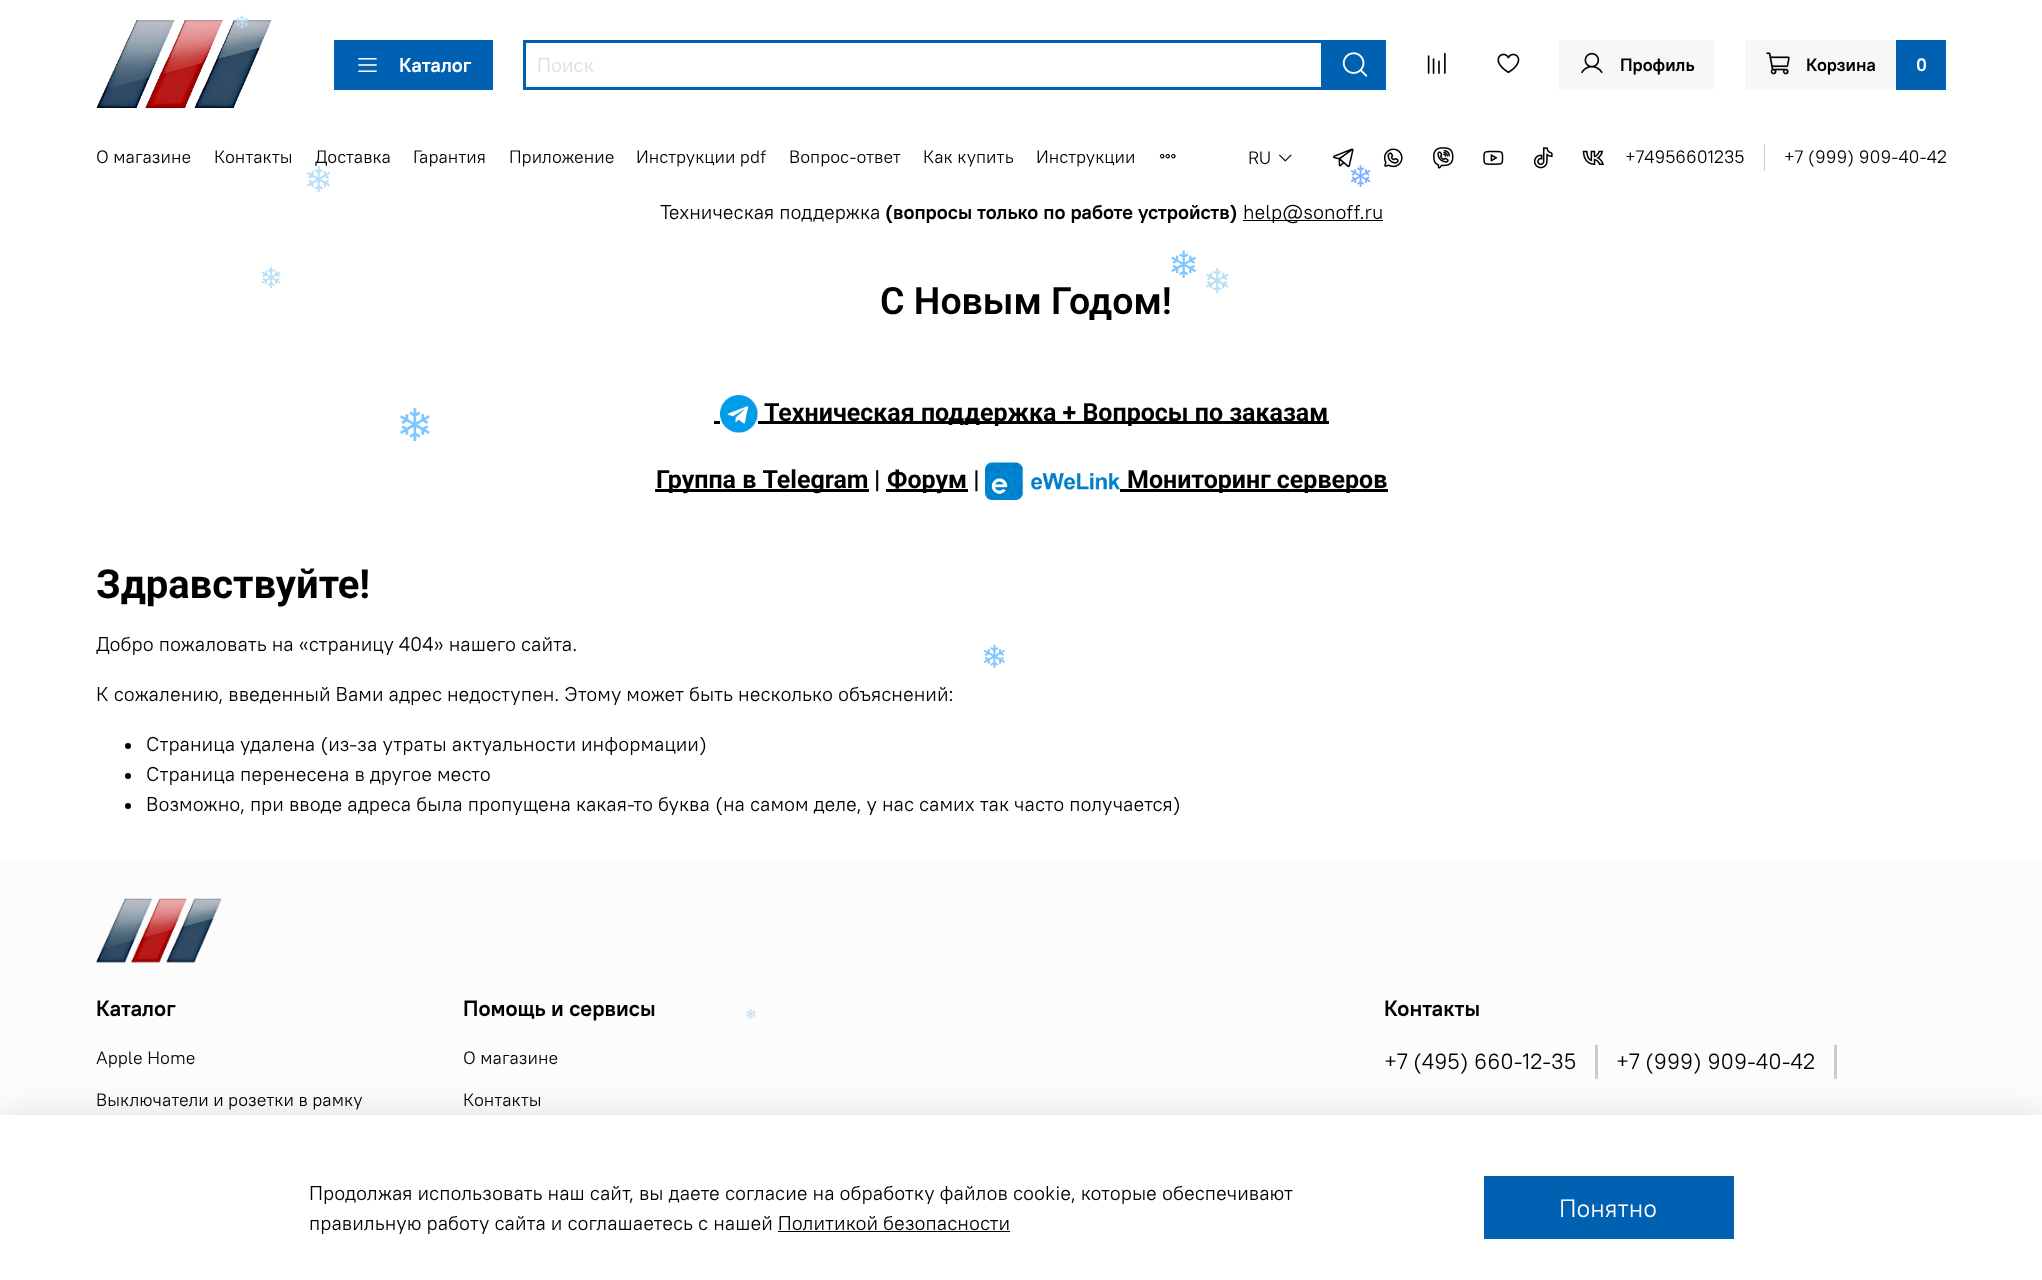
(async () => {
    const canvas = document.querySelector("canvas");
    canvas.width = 2042;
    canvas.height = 1280;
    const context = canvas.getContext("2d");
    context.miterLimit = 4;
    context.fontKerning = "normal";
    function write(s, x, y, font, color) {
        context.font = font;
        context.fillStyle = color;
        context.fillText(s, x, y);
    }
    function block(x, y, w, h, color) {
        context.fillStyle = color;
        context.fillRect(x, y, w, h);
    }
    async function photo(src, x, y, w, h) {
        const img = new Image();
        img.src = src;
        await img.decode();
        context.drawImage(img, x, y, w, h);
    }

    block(0, 0, 2042, 1280, "rgb(255, 255, 255)");
    await photo("media/1.png", 96, 20, 176, 89);
    write("❄", 234, 29, "19px DejaVu Sans", "rgb(185, 223, 245)");
    block(334, 40, 159, 50, "rgb(0, 97, 178)");
    await photo("media/2.png", 358, 58, 19, 14);
    write("Каталог", 399, 72, "bold 20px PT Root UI", "rgb(255, 255, 255)");
    context.strokeStyle = "rgb(0, 97, 178)";
    context.lineWidth = 3;
    context.strokeRect(524.5, 41.5, 798, 47);
    write("Поиск", 537, 72, "20px PT Root UI", "rgb(221, 221, 221)");
    block(1324, 40, 62, 50, "rgb(0, 97, 178)");
    await photo("media/3.png", 1342, 52, 26, 25);
    await photo("media/4.png", 1427, 52, 19, 22);
    await photo("media/5.png", 1497, 53, 23, 21);
    block(1559, 40, 155, 50, "rgb(247, 247, 247)");
    await photo("media/6.png", 1581, 52, 22, 22);
    write("Профиль", 1620, 71, "bold 18px PT Root UI", "rgb(0, 0, 0)");
    block(1745, 40, 151, 50, "rgb(247, 247, 247)");
    await photo("media/7.png", 1766, 52, 24, 23);
    write("Корзина", 1806, 71, "bold 18px PT Root UI", "rgb(0, 0, 0)");
    block(1896, 40, 50, 50, "rgb(0, 97, 178)");
    write("0", 1916, 71, "bold 18px PT Root UI", "rgb(255, 255, 255)");
    write("О магазине", 96, 163, "18px PT Root UI", "rgb(0, 0, 0)");
    write("Контакты", 214, 163, "18px PT Root UI", "rgb(0, 0, 0)");
    write("Доставка", 315, 163, "18px PT Root UI", "rgb(0, 0, 0)");
    write("Гарантия", 413, 163, "18px PT Root UI", "rgb(0, 0, 0)");
    write("Приложение", 509, 163, "18px PT Root UI", "rgb(0, 0, 0)");
    write("Инструкции pdf", 636, 163, "18px PT Root UI", "rgb(0, 0, 0)");
    write("Вопрос-ответ", 789, 163, "18px PT Root UI", "rgb(0, 0, 0)");
    write("Как купить", 923, 163, "18px PT Root UI", "rgb(0, 0, 0)");
    write("Инструкции", 1036, 163, "18px PT Root UI", "rgb(0, 0, 0)");
    await photo("media/8.png", 1159, 154, 17, 5);
    write("RU", 1248, 164, "18px PT Root UI", "rgb(0, 0, 0)");
    await photo("media/9.png", 1279, 154, 13, 8);
    await photo("media/10.png", 1333, 148, 21, 20);
    await photo("media/11.png", 1383, 148, 20, 20);
    await photo("media/12.png", 1433, 147, 21, 22);
    await photo("media/13.png", 1483, 150, 21, 15);
    await photo("media/14.png", 1533, 147, 20, 22);
    await photo("media/15.png", 1582, 150, 22, 15);
    block(1764, 144, 1, 27, "rgb(204, 204, 204)");
    write("+74956601235", 1625, 163, "18px PT Root UI", "rgb(0, 0, 0)");
    write("+7 (999) 909-40-42", 1784, 163, "18px PT Root UI", "rgb(0, 0, 0)");
    write("Техническая поддержка", 660, 219, "20px PT Root UI", "rgb(0, 0, 0)");
    write("(вопросы только по работе устройств)", 885, 219, "bold 20px PT Root UI", "rgb(0, 0, 0)");
    block(1243, 220, 140, 1, "rgb(0, 0, 0)");
    write("help@sonoff.ru", 1243, 219, "20px PT Root UI", "rgb(0, 0, 0)");
    write("С Новым Годом!", 880, 314, "600 37.5px Roboto", "rgb(0, 0, 0)");
    await photo("media/16.png", 720, 395, 38, 38);
    block(758, 421, 571, 3, "rgb(0, 0, 0)");
    write("Техническая поддержка + Вопросы по заказам", 764, 421, "bold 25px Roboto", "rgb(0, 0, 0)");
    block(714, 421, 6, 3, "rgb(0, 0, 0)");
    block(655, 489, 214, 3, "rgb(0, 0, 0)");
    write("Группа в Telegram", 656, 488, "bold 25px Roboto", "rgb(0, 0, 0)");
    write("|", 874, 488, "bold 25px Roboto", "rgb(0, 0, 0)");
    block(886, 489, 82, 3, "rgb(0, 0, 0)");
    write("Форум |", 887, 488, "bold 25px Roboto", "rgb(0, 0, 0)");
    await photo("media/17.png", 985, 462, 135, 38);
    block(1120, 489, 268, 3, "rgb(0, 0, 0)");
    write("Мониторинг серверов", 1127, 488, "bold 25px Roboto", "rgb(0, 0, 0)");
    write("Здравствуйте!", 96, 598, "bold 40px Roboto", "rgb(0, 0, 0)");
    write("Добро пожаловать на «страницу 404» нашего сайта.", 96, 651, "20px PT Root UI", "rgb(0, 0, 0)");
    write("К сожалению, введенный Вами адрес недоступен. Этому может быть несколько объяснений:", 96, 701, "20px PT Root UI", "rgb(0, 0, 0)");
    context.beginPath();
    context.arc(128, 746, 3, 0, Math.PI * 2);
    context.fill();
    write("Страница удалена (из-за утраты актуальности информации)", 146, 751, "20px PT Root UI", "rgb(0, 0, 0)");
    context.beginPath();
    context.arc(128, 776, 3, 0, Math.PI * 2);
    context.fill();
    write("Страница перенесена в другое место", 146, 781, "20px PT Root UI", "rgb(0, 0, 0)");
    context.beginPath();
    context.arc(128, 806, 3, 0, Math.PI * 2);
    context.fill();
    write("Возможно, при вводе адреса была пропущена какая-то буква (на самом деле, у нас самих так часто получается)", 146, 811, "20px PT Root UI", "rgb(0, 0, 0)");
    block(0, 859, 2042, 256, "rgb(252, 252, 252)");
    await photo("media/18.png", 96, 898, 126, 65);
    write("Каталог", 96, 1016, "bold 22px PT Root UI", "rgb(0, 0, 0)");
    write("Apple Home", 96, 1064, "18px PT Root UI", "rgb(0, 0, 0)");
    write("Выключатели и розетки в рамку", 96, 1106, "18px PT Root UI", "rgb(0, 0, 0)");
    write("Помощь и сервисы", 463, 1016, "bold 22px PT Root UI", "rgb(0, 0, 0)");
    write("О магазине", 463, 1064, "18px PT Root UI", "rgb(0, 0, 0)");
    write("Контакты", 463, 1106, "18px PT Root UI", "rgb(0, 0, 0)");
    write("Контакты", 1384, 1016, "bold 22px PT Root UI", "rgb(0, 0, 0)");
    block(1595, 1045, 3, 34, "rgb(204, 204, 204)");
    write("+7 (495) 660-12-35", 1384, 1069, "22px PT Root UI", "rgb(0, 0, 0)");
    block(1834, 1045, 3, 34, "rgb(204, 204, 204)");
    write("+7 (999) 909-40-42", 1616, 1069, "22px PT Root UI", "rgb(0, 0, 0)");
    write("❄", 304, 192, "35px DejaVu Sans", "rgb(185, 223, 245)");
    write("❄", 1348, 187, "30px DejaVu Sans", "rgb(127, 177, 255)");
    write("❄", 259, 288, "29px DejaVu Sans", "rgb(185, 223, 245)");
    write("❄", 1168, 278, "37.5px DejaVu Sans", "rgb(127, 199, 255)");
    write("❄", 1203, 293, "34px DejaVu Sans", "rgb(185, 223, 245)");
    write("❄", 396, 441, "45px DejaVu Sans", "rgb(127, 199, 255)");
    write("❄", 981, 668, "32px DejaVu Sans", "rgb(127, 199, 255)");
    write("❄", 745, 1019, "14px DejaVu Sans", "rgb(185, 223, 245)");
    context.fillStyle = "rgba(0, 0, 0, 0.09)";
    context.filter = "blur(14.5px)";
    context.beginPath();
    context.rect(-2, 1111, 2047, 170);
    context.fill();
    context.filter = "none";
    block(0, 1115, 2042, 165, "rgb(255, 255, 255)");
    write("Продолжая использовать наш сайт, вы даете согласие на обработку файлов cookie, которые обеспечивают", 309, 1200, "20px PT Root UI", "rgb(0, 0, 0)");
    write("правильную работу сайта и соглашаетесь с нашей Политикой безопасности", 309, 1230, "20px PT Root UI", "rgb(0, 0, 0)");
    block(778, 1231, 232, 1, "rgb(0, 0, 0)");
    block(1484, 1176, 250, 63, "rgb(0, 97, 178)");
    write("Понятно", 1559, 1217, "25px PT Root UI", "rgb(255, 255, 255)");
})();
